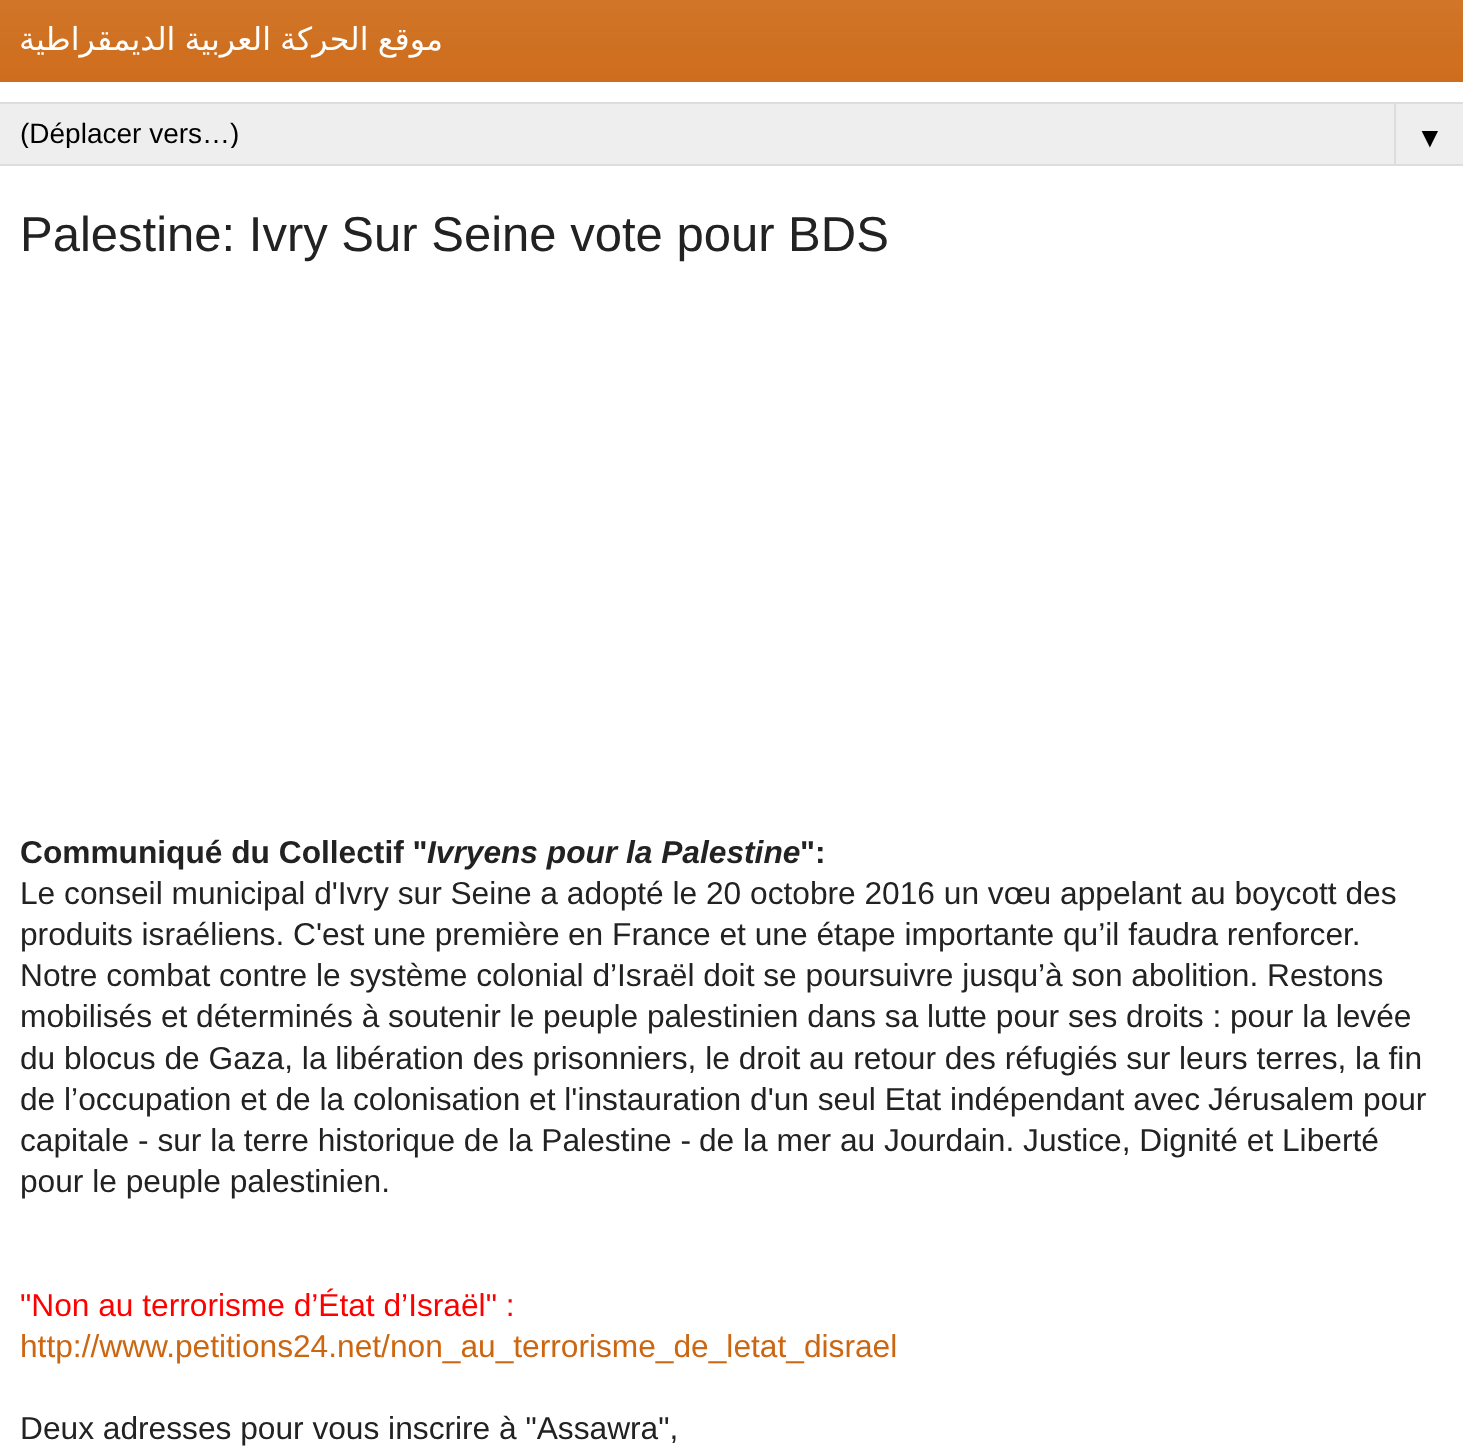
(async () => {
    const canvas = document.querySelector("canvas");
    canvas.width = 1463;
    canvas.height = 1449;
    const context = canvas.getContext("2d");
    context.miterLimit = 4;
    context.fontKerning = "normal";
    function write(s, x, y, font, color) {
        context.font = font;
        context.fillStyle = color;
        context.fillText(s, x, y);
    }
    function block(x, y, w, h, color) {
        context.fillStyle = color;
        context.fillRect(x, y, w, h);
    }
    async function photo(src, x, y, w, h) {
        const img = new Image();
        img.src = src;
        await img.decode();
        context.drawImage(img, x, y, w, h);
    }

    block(0, 0, 1463, 1449, "rgb(255, 255, 255)");
    block(0, 0, 1463, 82, "rgb(204, 102, 17)");
    await photo("media/1.png", 0, 0, 1463, 82);
    context.wordSpacing = "-1px";
    context.direction = "rtl";
    write("موقع الحركة العربية الديمقراطية", 443, 50, "31.7px DejaVu Sans", "rgb(255, 255, 255)");
    block(0, 104, 1463, 60, "rgb(238, 238, 238)");
    block(0, 102, 1463, 2, "rgb(221, 221, 221)");
    block(0, 164, 1463, 2, "rgb(221, 221, 221)");
    context.save();
    context.beginPath();
    context.rect(20, 116, 1424, 32);
    context.clip();
    context.wordSpacing = "0px";
    context.direction = "ltr";
    write("(Déplacer vers…)", 20, 143, "28px Liberation Sans", "rgb(0, 0, 0)");
    context.restore();
    block(1394, 102, 2, 64, "rgb(221, 221, 221)");
    context.wordSpacing = "0px";
    context.direction = "ltr";
    write("▼", 1416, 147, "28px Liberation Sans", "rgb(0, 0, 0)");
    write("Palestine: Ivry Sur Seine vote pour BDS", 20, 251, "49px Liberation Sans", "rgb(34, 34, 34)");
    write("Communiqué du Collectif \"", 20, 863, "bold 31.7px Liberation Sans", "rgb(34, 34, 34)");
    write("Ivryens pour la Palestine", 427, 863, "italic bold 31.7px Liberation Sans", "rgb(34, 34, 34)");
    write("\":", 800, 863, "bold 31.7px Liberation Sans", "rgb(34, 34, 34)");
    write("Le conseil municipal d'Ivry sur Seine a adopté le 20 octobre 2016 un vœu appelant au boycott des", 20, 904, "31.7px Liberation Sans", "rgb(34, 34, 34)");
    write("produits israéliens. C'est une première", 20, 945, "31.7px Liberation Sans", "rgb(34, 34, 34)");
    write("en France et une étape importante qu’il faudra renforcer.", 568, 945, "31.7px Liberation Sans", "rgb(34, 34, 34)");
    write("Notre combat contre le système colonial d’Israël doit se poursuivre jusqu’à son abolition. Restons", 20, 986, "31.7px Liberation Sans", "rgb(34, 34, 34)");
    write("mobilisés et déterminés à soutenir le", 20, 1027, "31.7px Liberation Sans", "rgb(34, 34, 34)");
    write("peuple palestinien dans sa lutte pour ses droits : pour la levée", 543, 1027, "31.7px Liberation Sans", "rgb(34, 34, 34)");
    write("du blocus de Gaza, la libération des prisonniers, le droit au retour des réfugiés sur leurs terres, la fin", 20, 1069, "31.7px Liberation Sans", "rgb(34, 34, 34)");
    write("de l’occupation et de la colonisation et l'instauration d'un seul Etat indépendant avec", 20, 1110, "31.7px Liberation Sans", "rgb(34, 34, 34)");
    write("Jérusalem pour", 1208, 1110, "31.7px Liberation Sans", "rgb(34, 34, 34)");
    write("capitale - sur la terre historique de la Palestine -", 20, 1151, "31.7px Liberation Sans", "rgb(34, 34, 34)");
    write("de la mer au Jourdain. Justice, Dignité et Liberté", 699, 1151, "31.7px Liberation Sans", "rgb(34, 34, 34)");
    write("pour le peuple palestinien.", 20, 1192, "31.7px Liberation Sans", "rgb(34, 34, 34)");
    write("\"Non au terrorisme d’État d’Israël\" :", 20, 1316, "31.7px Liberation Sans", "rgb(255, 0, 0)");
    write("http://www.petitions24.net/non_au_terrorisme_de_letat_disrael", 20, 1357, "31.7px Liberation Sans", "rgb(204, 102, 17)");
    write("Deux adresses pour vous inscrire à \"Assawra\",", 20, 1439, "31.7px Liberation Sans", "rgb(34, 34, 34)");
})();
